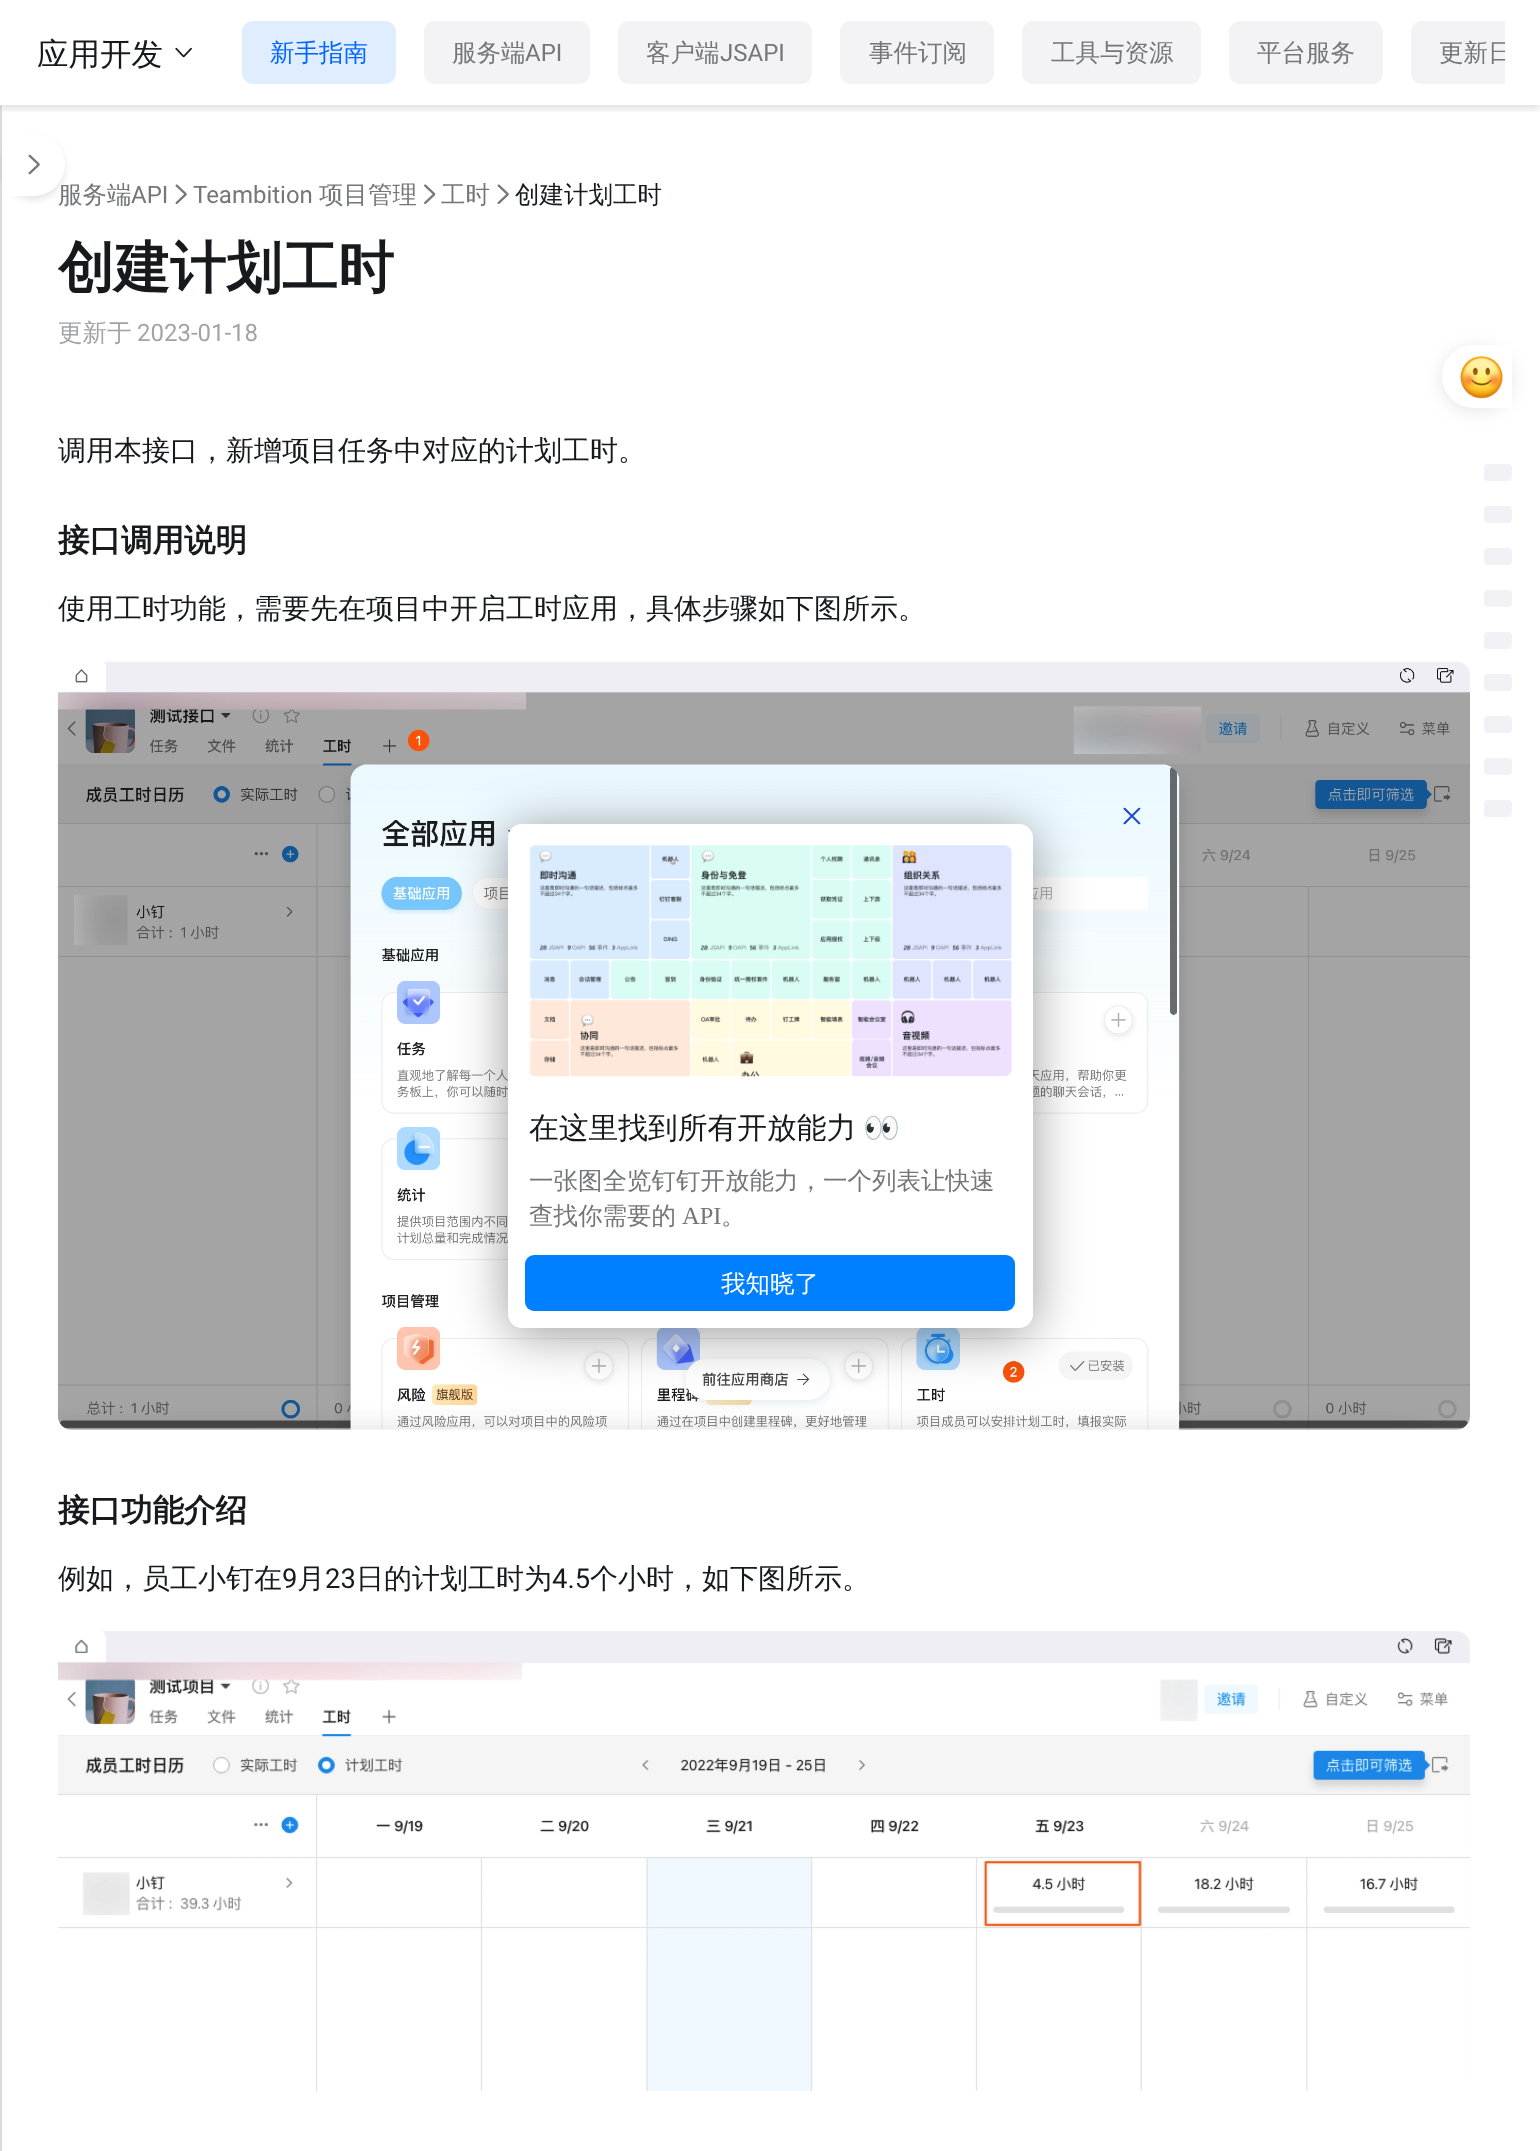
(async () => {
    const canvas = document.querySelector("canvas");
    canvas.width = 1540;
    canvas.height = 2151;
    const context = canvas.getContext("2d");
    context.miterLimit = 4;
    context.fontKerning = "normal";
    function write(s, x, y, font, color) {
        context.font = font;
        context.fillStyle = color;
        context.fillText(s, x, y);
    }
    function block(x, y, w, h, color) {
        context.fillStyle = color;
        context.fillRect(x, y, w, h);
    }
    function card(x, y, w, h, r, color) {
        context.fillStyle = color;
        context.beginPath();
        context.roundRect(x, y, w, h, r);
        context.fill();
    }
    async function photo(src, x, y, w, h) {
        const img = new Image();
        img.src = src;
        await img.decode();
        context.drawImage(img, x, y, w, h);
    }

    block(0, 0, 1540, 2151, "rgb(255, 255, 255)");
    block(0, 105, 2, 2046, "rgb(246, 246, 246)");
    context.save();
    context.beginPath();
    context.rect(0, 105, 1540, 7);
    context.clip();
    context.fillStyle = "rgba(0, 0, 0, 0.12)";
    context.filter = "blur(3.5px)";
    context.beginPath();
    context.rect(0, 4, 1540, 105);
    context.fill();
    context.filter = "none";
    context.restore();
    write("应用开发", 37, 65, "500 31.5px WenQuanYi Zen Hei", "rgb(23, 26, 29)");
    await photo("media/1.png", 175, 47, 17, 11);
    card(242, 21, 154, 63, 11, "rgb(224, 237, 255)");
    write("新手指南", 270, 61, "500 24.5px WenQuanYi Zen Hei", "rgb(0, 102, 255)");
    card(424, 21, 166, 63, 11, "rgb(243, 243, 245)");
    write("服务端", 452, 61, "500 24.5px WenQuanYi Zen Hei", "rgb(116, 118, 119)");
    write("API", 525, 61, "24.5px Roboto", "rgb(116, 118, 119)");
    card(618, 21, 194, 63, 11, "rgb(243, 243, 245)");
    write("客户端", 646, 61, "500 24.5px WenQuanYi Zen Hei", "rgb(116, 118, 119)");
    write("JSAPI", 720, 61, "24.5px Roboto", "rgb(116, 118, 119)");
    card(840, 21, 154, 63, 11, "rgb(243, 243, 245)");
    write("事件订阅", 869, 61, "500 24.5px WenQuanYi Zen Hei", "rgb(116, 118, 119)");
    card(1022, 21, 179, 63, 11, "rgb(243, 243, 245)");
    write("工具与资源", 1051, 61, "500 24.5px WenQuanYi Zen Hei", "rgb(116, 118, 119)");
    card(1229, 21, 154, 63, 11, "rgb(243, 243, 245)");
    write("平台服务", 1257, 61, "500 24.5px WenQuanYi Zen Hei", "rgb(116, 118, 119)");
    context.fillStyle = "rgb(243, 243, 245)";
    context.beginPath();
    context.roundRect(1411, 21, 94, 63, [11, 0, 0, 11]);
    context.fill();
    context.save();
    context.beginPath();
    context.rect(242, 21, 1263, 63);
    context.clip();
    write("更新日", 1439, 61, "500 24.5px WenQuanYi Zen Hei", "rgb(116, 118, 119)");
    context.restore();
    block(0, 105, 2, 2046, "rgba(126, 134, 142, 0.24)");
    context.fillStyle = "rgba(0, 0, 0, 0.1)";
    context.filter = "blur(3.5px)";
    context.beginPath();
    context.roundRect(2, 137, 63, 63, 31.5);
    context.fill();
    context.filter = "none";
    write("服务端", 58, 203, "500 24.5px WenQuanYi Zen Hei", "rgb(116, 118, 119)");
    context.fillStyle = "rgb(255, 255, 255)";
    context.beginPath();
    context.roundRect(2, 133, 63, 63, [0, 31.5, 31.5, 0]);
    context.fill();
    await photo("media/2.png", 28, 154, 12, 21);
    write("API", 131, 203, "24.5px Roboto", "rgb(116, 118, 119)");
    await photo("media/3.png", 175, 184, 12, 20);
    write("Teambition", 193, 203, "24.5px Roboto", "rgb(116, 118, 119)");
    write("项目管理", 319, 203, "500 24.5px WenQuanYi Zen Hei", "rgb(116, 118, 119)");
    await photo("media/4.png", 424, 184, 12, 20);
    write("工时", 441, 203, "500 24.5px WenQuanYi Zen Hei", "rgb(116, 118, 119)");
    await photo("media/3.png", 497, 184, 12, 20);
    write("创建计划工时", 515, 203, "500 24.5px WenQuanYi Zen Hei", "rgb(23, 26, 29)");
    write("创建计划工时", 58, 287, "bold 56px WenQuanYi Zen Hei", "rgb(23, 26, 29)");
    write("更新于", 58, 341, "500 24.5px WenQuanYi Zen Hei", "rgb(162, 163, 165)");
    write("2023-01-18", 137, 341, "24.5px Roboto", "rgb(162, 163, 165)");
    write("调用本接口，新增项目任务中对应的计划工时。", 58, 460, "500 28px WenQuanYi Zen Hei", "rgb(23, 26, 29)");
    write("接口调用说明", 58, 551, "bold 31.5px WenQuanYi Zen Hei", "rgb(23, 26, 29)");
    write("使用工时功能，需要先在项目中开启工时应用，具体步骤如下图所示。", 58, 618, "500 28px WenQuanYi Zen Hei", "rgb(23, 26, 29)");
    await photo("media/5.png", 57, 661, 1413, 769);
    write("接口功能介绍", 58, 1521, "bold 31.5px WenQuanYi Zen Hei", "rgb(23, 26, 29)");
    write("例如，员工小钉在", 58, 1588, "500 28px WenQuanYi Zen Hei", "rgb(23, 26, 29)");
    write("9", 282, 1588, "28px Roboto", "rgb(23, 26, 29)");
    write("月", 297, 1588, "500 28px WenQuanYi Zen Hei", "rgb(23, 26, 29)");
    write("23", 325, 1588, "28px Roboto", "rgb(23, 26, 29)");
    write("日的计划工时为", 356, 1588, "500 28px WenQuanYi Zen Hei", "rgb(23, 26, 29)");
    write("4.5", 552, 1588, "28px Roboto", "rgb(23, 26, 29)");
    write("个小时，如下图所示。", 590, 1588, "500 28px WenQuanYi Zen Hei", "rgb(23, 26, 29)");
    await photo("media/6.png", 58, 1631, 1412, 460);
    context.fillStyle = "rgba(0, 0, 0, 0.1)";
    context.filter = "blur(9px)";
    context.beginPath();
    context.roundRect(1442, 348, 70, 63, 31.5);
    context.fill();
    context.filter = "none";
    context.fillStyle = "rgb(255, 255, 255)";
    context.beginPath();
    context.roundRect(1442, 345, 70, 63, [31.5, 0, 0, 31.5]);
    context.fill();
    await photo("media/7.png", 1460, 356, 43, 43);
    card(1484, 464, 28, 17, 4, "rgb(242, 242, 246)");
    card(1484, 506, 28, 17, 4, "rgb(242, 242, 246)");
    card(1484, 548, 28, 17, 4, "rgb(242, 242, 246)");
    card(1484, 590, 28, 17, 4, "rgb(242, 242, 246)");
    card(1484, 632, 28, 17, 4, "rgb(242, 242, 246)");
    card(1484, 674, 28, 17, 4, "rgb(242, 242, 246)");
    card(1484, 716, 28, 17, 4, "rgb(242, 242, 246)");
    card(1484, 758, 28, 17, 4, "rgb(242, 242, 246)");
    card(1484, 800, 28, 17, 4, "rgb(242, 242, 246)");
    context.fillStyle = "rgba(0, 0, 0, 0.4)";
    context.filter = "blur(26px)";
    context.beginPath();
    context.roundRect(508, 830, 525, 504, 14);
    context.fill();
    context.filter = "none";
    card(508, 824, 525, 504, 14, "rgb(255, 255, 255)");
    await photo("media/8.png", 528, 845, 484, 232);
    write("在这里找到所有开放能力", 529, 1138, "500 29.75px WenQuanYi Zen Hei", "rgb(23, 26, 29)");
    write("👀", 863, 1138, "29.75px Noto Color Emoji", "rgb(23, 26, 29)");
    write("一张图全览钉钉开放能力，一个列表让快速", 529, 1189, "500 24.5px WenQuanYi Zen Hei", "rgb(116, 118, 119)");
    write("查找你需要的", 529, 1224, "500 24.5px WenQuanYi Zen Hei", "rgb(116, 118, 119)");
    write("API", 682, 1224, "24.5px Liberation Serif", "rgb(116, 118, 119)");
    write("。", 721, 1224, "500 24.5px WenQuanYi Zen Hei", "rgb(116, 118, 119)");
    card(525, 1255, 490, 56, 9, "rgb(0, 127, 255)");
    write("我知晓了", 721, 1292, "500 24.5px WenQuanYi Zen Hei", "rgb(255, 255, 255)");
})();
